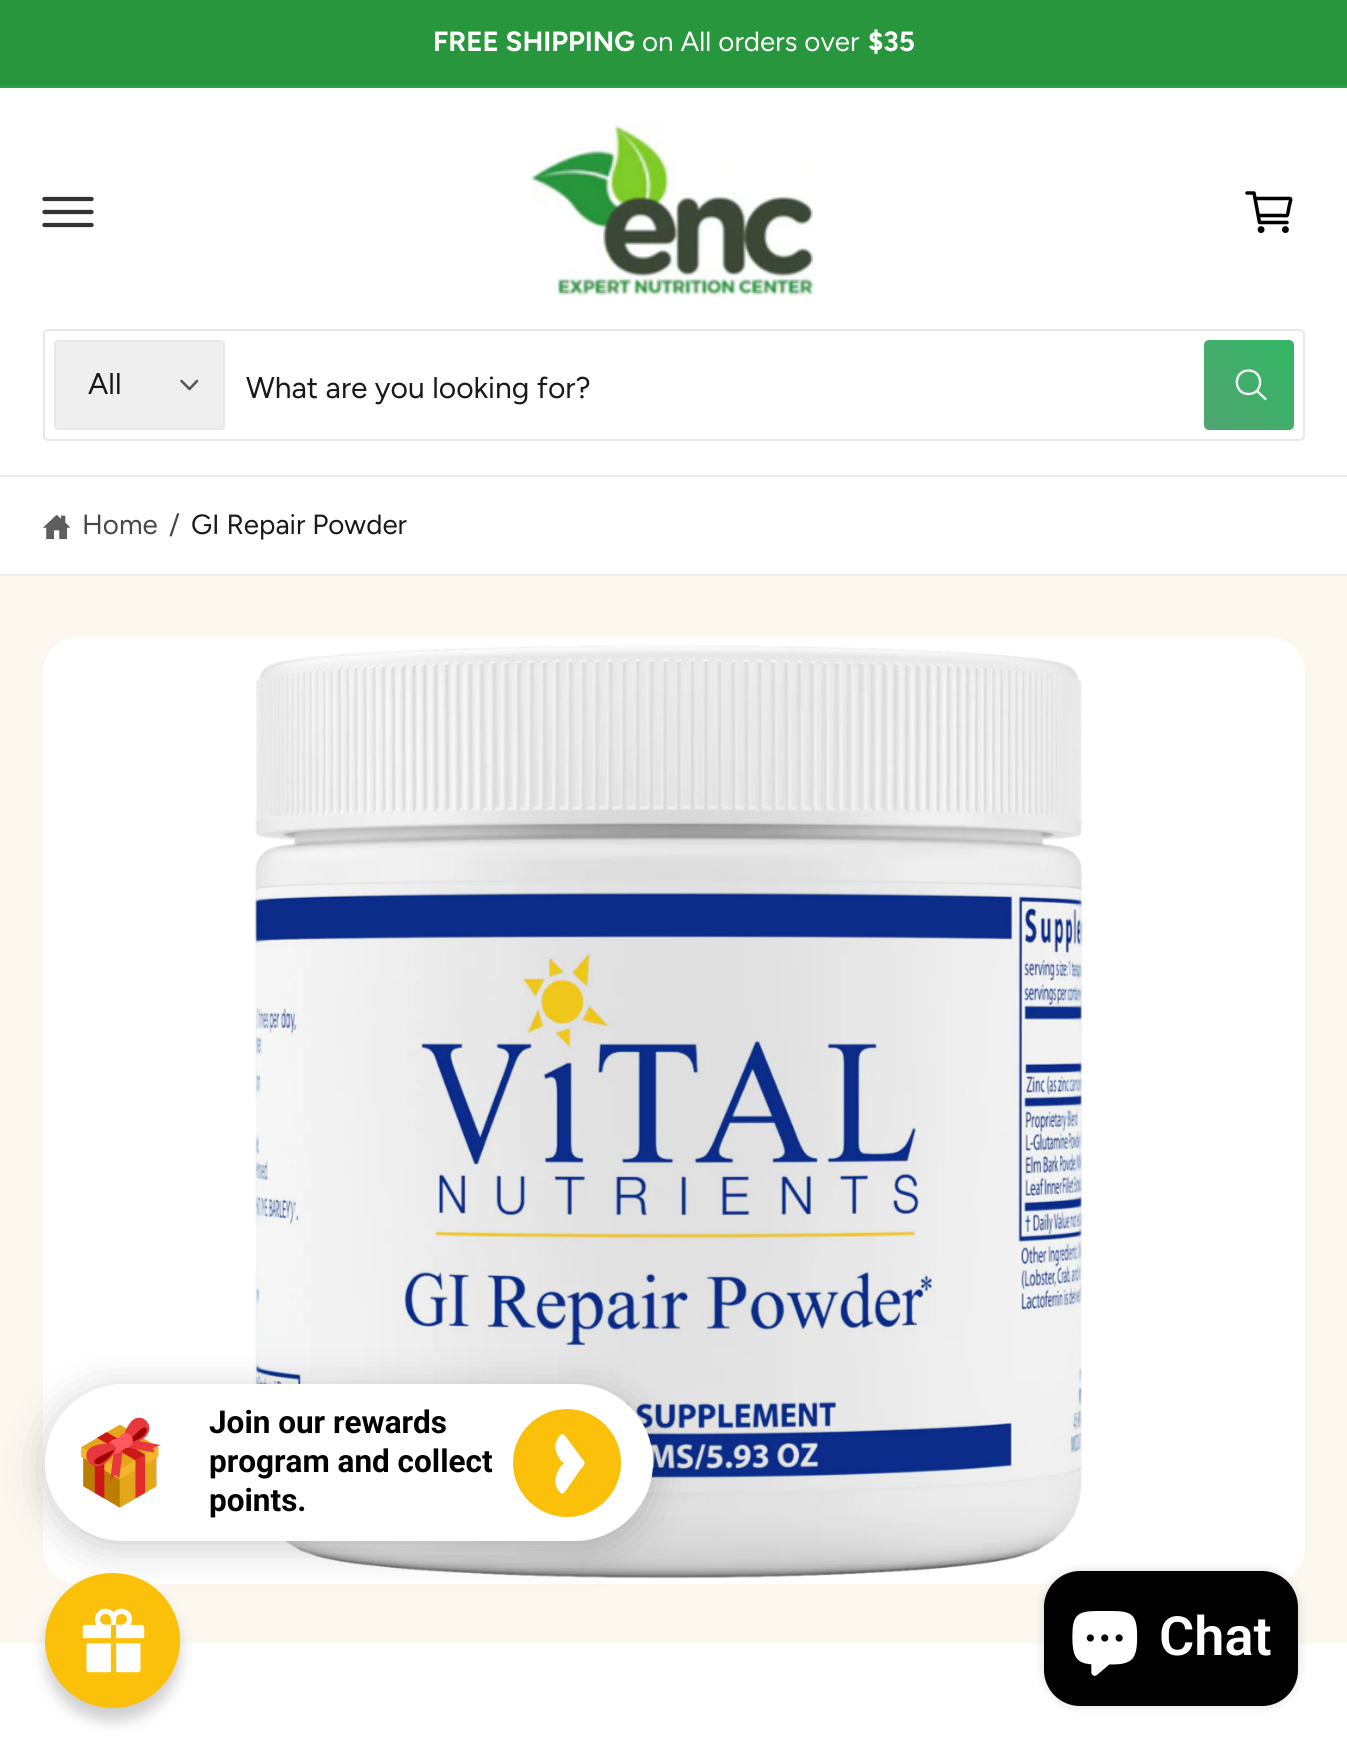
import math
import cairo


def round_path(ctx, x, y, w, h, r):
	ctx.new_sub_path()
	for i, (u, v) in enumerate([(x + w - r, y + h - r), (x + r, y + h - r), (x + r, y + r), (x + w - r, y + r)]):
		ctx.arc(u, v, r, i * math.pi / 2, (i + 1) * math.pi / 2)
	ctx.close_path()

def blur_box(ctx, x, y, w, h, r, blur, alpha):
	ctx.push_group_with_content(cairo.CONTENT_ALPHA)
	ctx.set_operator(cairo.OPERATOR_SOURCE)
	for i in range(15, -16, -2):
		e = blur * i / 6
		if min(w, h) + 2 * e > 0:
			ctx.set_source_rgba(0, 0, 0, alpha * math.erfc((i - 1) / 8.5) / 2)
			round_path(ctx, x - e, y - e, w + 2 * e, h + 2 * e, max(0, min(r + e + blur * .6, min(w, h) / 2 + e)))
			ctx.fill()
	ctx.mask(ctx.pop_group())

def paste(ctx, path, x, y, w, h):
	ctx.save()
	ctx.set_source_surface(cairo.ImageSurface.create_from_png(path), x, y)
	ctx.rectangle(x, y, w, h)
	ctx.fill()
	ctx.restore()

def draw(ctx):
	ctx.set_source_rgb(0.988, 0.965, 0.937)
	ctx.paint()
	ctx.set_source_rgb(0.153, 0.588, 0.235)
	ctx.rectangle(0, 0, 1347, 86)
	ctx.fill()
	ctx.set_source_rgb(0.22, 0.62, 0.298)
	ctx.rectangle(0, 86, 1347, 2)
	ctx.fill()
	ctx.select_font_face('Figtree', cairo.FONT_SLANT_NORMAL, cairo.FONT_WEIGHT_BOLD)
	ctx.set_font_size(27.75)
	ctx.set_source_rgb(1, 1, 1)
	ctx.move_to(433, 51)
	ctx.show_text('FREE SHIPPING')
	ctx.select_font_face('Figtree')
	ctx.move_to(642, 51)
	ctx.show_text('on All orders over')
	ctx.select_font_face('Figtree', cairo.FONT_SLANT_NORMAL, cairo.FONT_WEIGHT_BOLD)
	ctx.move_to(868, 51)
	ctx.show_text('$35')
	ctx.rectangle(0, 88, 1347, 387)
	ctx.fill()
	ctx.set_source_rgb(0.922, 0.922, 0.922)
	ctx.rectangle(0, 475, 1347, 2)
	ctx.fill()
	ctx.new_path()
	ctx.move_to(44.5, 199)
	ctx.line_to(91.5, 199)
	ctx.move_to(44.5, 212)
	ctx.line_to(91.5, 212)
	ctx.move_to(44.5, 225)
	ctx.line_to(91.5, 225)
	ctx.set_source_rgb(0.2, 0.2, 0.2)
	ctx.set_line_width(4.3)
	ctx.set_line_cap(cairo.LINE_CAP_ROUND)
	ctx.stroke()
	paste(ctx, 'media/1.png', 529, 121, 286, 177)
	ctx.arc(1261.1, 229.6, 1.7, 0, 2 * math.pi)
	ctx.set_source_rgb(0, 0, 0)
	ctx.set_line_width(3.5)
	ctx.set_line_cap(cairo.LINE_CAP_BUTT)
	ctx.stroke()
	ctx.arc(1285.4, 229.6, 1.7, 0, 2 * math.pi)
	ctx.stroke()
	ctx.new_path()
	ctx.move_to(1247, 193)
	ctx.line_to(1254, 193)
	ctx.line_to(1259.5, 222.5)
	ctx.line_to(1287, 222.5)
	ctx.move_to(1259.5, 215.5)
	ctx.line_to(1282, 215.5)
	ctx.curve_to(1287.5, 215.5, 1287, 217, 1288, 212.5)
	ctx.line_to(1289, 207)
	ctx.curve_to(1291, 197, 1293, 198.5, 1284, 198.5)
	ctx.line_to(1256, 198.5)
	ctx.set_line_cap(cairo.LINE_CAP_ROUND)
	ctx.set_line_join(cairo.LINE_JOIN_ROUND)
	ctx.stroke()
	ctx.set_source_rgb(0.937, 0.937, 0.937)
	round_path(ctx, 54, 340, 171, 90, 5)
	ctx.fill()
	ctx.rectangle(55, 341, 169, 88)
	ctx.set_source_rgba(0.098, 0.098, 0.098, 0.03)
	ctx.set_line_width(2)
	ctx.set_line_cap(cairo.LINE_CAP_BUTT)
	ctx.set_line_join(cairo.LINE_JOIN_MITER)
	ctx.stroke()
	ctx.new_path()
	ctx.move_to(181.5, 381)
	ctx.line_to(189.5, 389)
	ctx.line_to(197, 381)
	ctx.set_source_rgb(0.349, 0.349, 0.349)
	ctx.set_line_width(2.6)
	ctx.set_line_cap(cairo.LINE_CAP_ROUND)
	ctx.set_line_join(cairo.LINE_JOIN_ROUND)
	ctx.stroke()
	gradient = cairo.LinearGradient(1200, 426, 1297, 344)
	gradient.add_color_stop_rgba(0.13, 0.302, 0.655, 0.435, 1)
	gradient.add_color_stop_rgba(0.84, 0.22, 0.706, 0.404, 1)
	ctx.set_source(gradient)
	round_path(ctx, 1204, 340, 90, 90, 5)
	ctx.fill()
	ctx.new_path()
	ctx.move_to(1248.5, 370.5)
	ctx.curve_to(1233, 370.5, 1233, 394, 1248.5, 394)
	ctx.curve_to(1264, 394, 1264, 370.5, 1248.5, 370.5)
	ctx.close_path()
	ctx.set_source_rgb(0.953, 0.953, 0.953)
	ctx.set_line_width(2.4)
	ctx.set_line_cap(cairo.LINE_CAP_BUTT)
	ctx.set_line_join(cairo.LINE_JOIN_MITER)
	ctx.stroke()
	ctx.new_path()
	ctx.move_to(1257, 391)
	ctx.line_to(1265.5, 399)
	ctx.set_line_cap(cairo.LINE_CAP_ROUND)
	ctx.stroke()
	round_path(ctx, 44, 330, 1260, 110, 4)
	ctx.set_source_rgb(0.91, 0.91, 0.91)
	ctx.set_line_width(2)
	ctx.set_line_cap(cairo.LINE_CAP_BUTT)
	ctx.stroke()
	ctx.select_font_face('Figtree')
	ctx.set_font_size(30)
	ctx.set_source_rgb(0.098, 0.098, 0.098)
	ctx.move_to(88, 394)
	ctx.show_text('All')
	ctx.move_to(246, 398)
	ctx.show_text('What are you looking for?')
	ctx.set_source_rgb(1, 1, 1)
	ctx.rectangle(0, 477, 1347, 97)
	ctx.fill()
	ctx.set_source_rgb(0.929, 0.929, 0.929)
	ctx.rectangle(0, 574, 1347, 2)
	ctx.fill()
	paste(ctx, 'media/2.png', 43, 514, 27, 26)
	ctx.set_font_size(27.75)
	ctx.set_source_rgb(0.278, 0.278, 0.278)
	ctx.move_to(82, 534)
	ctx.show_text('Home')
	ctx.move_to(169, 534)
	ctx.show_text('/')
	ctx.set_source_rgb(0.098, 0.098, 0.098)
	ctx.move_to(191, 534)
	ctx.show_text('GI Repair Powder')
	ctx.set_source_rgb(1, 1, 1)
	round_path(ctx, 43, 637, 1262, 947, 36)
	ctx.fill()
	paste(ctx, 'media/3.png', 254, 645, 829, 934)
	ctx.rectangle(0, 1643, 1347, 109)
	ctx.fill()
	ctx.set_source_rgb(0, 0, 0)
	blur_box(ctx, 45, 1391, 608, 157, 78.5, 20, 0.2)
	ctx.set_source_rgb(1, 1, 1)
	round_path(ctx, 45, 1384, 608, 157, 78.5)
	ctx.fill()
	paste(ctx, 'media/4.png', 81, 1418, 80, 90)
	ctx.select_font_face('Roboto', cairo.FONT_SLANT_NORMAL, cairo.FONT_WEIGHT_BOLD)
	ctx.set_font_size(31.5)
	ctx.set_source_rgb(0, 0, 0)
	for x, y, s in [
		(209, 1433, 'Join our rewards'),
		(209, 1472, 'program and collect'),
		(209, 1511, 'points.'),
	]:
		ctx.move_to(x, y)
		ctx.show_text(s)
	ctx.set_source_rgb(0.984, 0.753, 0.039)
	ctx.new_path()
	ctx.arc(567, 1463, 54, 0, 2 * math.pi)
	ctx.fill()
	ctx.set_source_rgb(1, 1, 1)
	ctx.new_path()
	ctx.move_to(584, 1461)
	ctx.curve_to(586, 1464, 582, 1468, 580, 1470)
	ctx.line_to(567, 1489)
	ctx.curve_to(563, 1494, 563, 1496, 558, 1490)
	ctx.curve_to(553, 1482, 556, 1473, 561, 1466)
	ctx.line_to(564, 1463)
	ctx.line_to(561, 1461)
	ctx.curve_to(557, 1455, 553, 1447, 557, 1440)
	ctx.curve_to(558, 1438, 560, 1434, 563, 1434)
	ctx.curve_to(564, 1433, 581, 1458, 584, 1461)
	ctx.close_path()
	ctx.fill()
	ctx.set_source_rgb(0, 0, 0)
	blur_box(ctx, 45, 1586, 135, 135, 67.5, 7, 0.19)
	ctx.set_source_rgb(0.984, 0.753, 0.039)
	ctx.arc(112.5, 1640.5, 67.5, 0, 2 * math.pi)
	ctx.fill()
	paste(ctx, 'media/5.png', 82, 1608, 63, 65)
	ctx.set_source_rgb(0, 0, 0)
	blur_box(ctx, 1044, 1571, 254, 135, 36, 5.5, 0.15)
	ctx.set_source_rgb(0, 0, 0)
	round_path(ctx, 1044, 1571, 254, 135, 36)
	ctx.fill()
	paste(ctx, 'media/6.png', 1072, 1611, 66, 65)
	ctx.select_font_face('Roboto SemiBold')
	ctx.set_font_size(54)
	ctx.set_source_rgb(1, 1, 1)
	ctx.move_to(1159, 1655)
	ctx.show_text('Chat')


surface = cairo.ImageSurface(cairo.FORMAT_RGB24, 1347, 1752)
ctx = cairo.Context(surface)
options = cairo.FontOptions()
options.set_hint_metrics(cairo.HINT_METRICS_OFF)
options.set_hint_style(cairo.HINT_STYLE_NONE)
ctx.set_font_options(options)
ctx.set_miter_limit(4)
draw(ctx)
surface.write_to_png('image.png')
